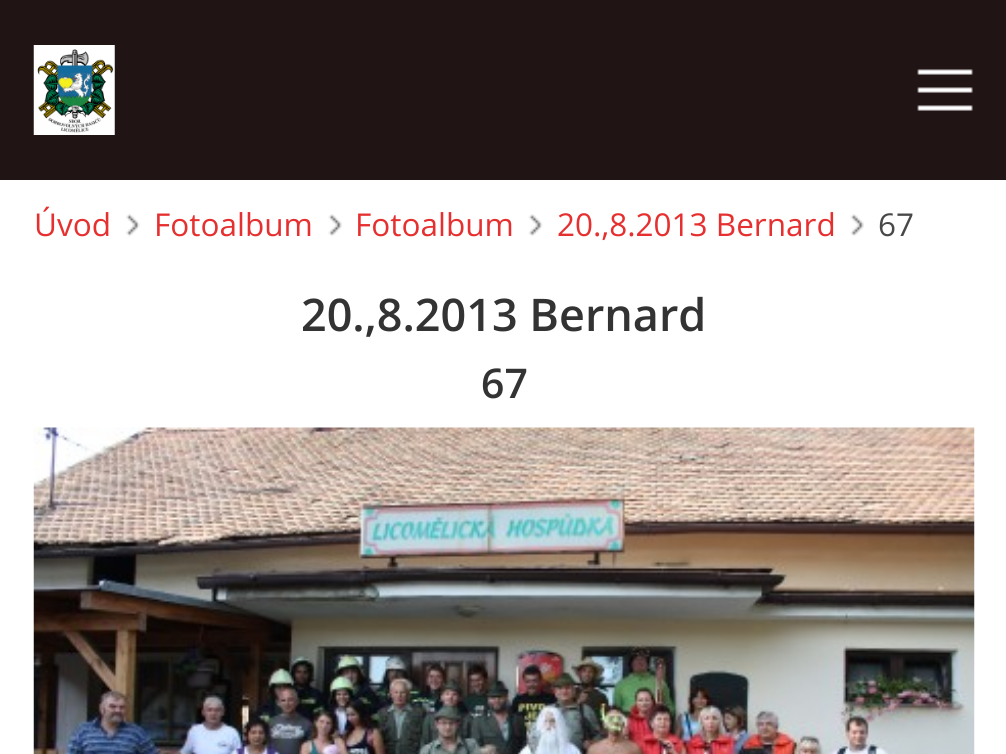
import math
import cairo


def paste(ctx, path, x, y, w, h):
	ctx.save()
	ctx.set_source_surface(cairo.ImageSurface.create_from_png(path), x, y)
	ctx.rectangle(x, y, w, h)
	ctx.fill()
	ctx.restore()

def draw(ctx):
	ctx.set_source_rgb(1, 1, 1)
	ctx.paint()
	ctx.set_source_rgb(0.129, 0.082, 0.082)
	ctx.rectangle(0, 0, 1006, 180)
	ctx.fill()
	paste(ctx, 'media/1.png', 33, 45, 82, 90)
	paste(ctx, 'media/2.png', 917, 69, 56, 42)
	paste(ctx, 'media/3.png', 126, 213, 14, 24)
	ctx.select_font_face('Open Sans')
	ctx.set_font_size(31.5)
	ctx.set_source_rgb(0.902, 0.184, 0.184)
	ctx.move_to(34, 236)
	ctx.show_text('Úvod')
	paste(ctx, 'media/4.png', 328, 214, 14, 22)
	ctx.move_to(154, 236)
	ctx.show_text('Fotoalbum')
	paste(ctx, 'media/5.png', 528, 214, 15, 22)
	ctx.move_to(355, 236)
	ctx.show_text('Fotoalbum')
	paste(ctx, 'media/4.png', 850, 214, 14, 22)
	ctx.move_to(557, 236)
	ctx.show_text('20.,8.2013 Bernard')
	ctx.set_source_rgb(0.282, 0.282, 0.282)
	ctx.move_to(878, 236)
	ctx.show_text('67')
	ctx.select_font_face('Open Sans SemiBold')
	ctx.set_font_size(45)
	ctx.set_source_rgb(0.2, 0.2, 0.2)
	ctx.move_to(301, 331)
	ctx.show_text('20.,8.2013 Bernard')
	ctx.set_font_size(41)
	ctx.move_to(481, 398)
	ctx.show_text('67')
	paste(ctx, 'media/6.png', 33, 427, 942, 327)


surface = cairo.ImageSurface(cairo.FORMAT_RGB24, 1006, 754)
ctx = cairo.Context(surface)
options = cairo.FontOptions()
options.set_hint_metrics(cairo.HINT_METRICS_OFF)
options.set_hint_style(cairo.HINT_STYLE_NONE)
ctx.set_font_options(options)
ctx.set_miter_limit(4)
draw(ctx)
surface.write_to_png('image.png')
